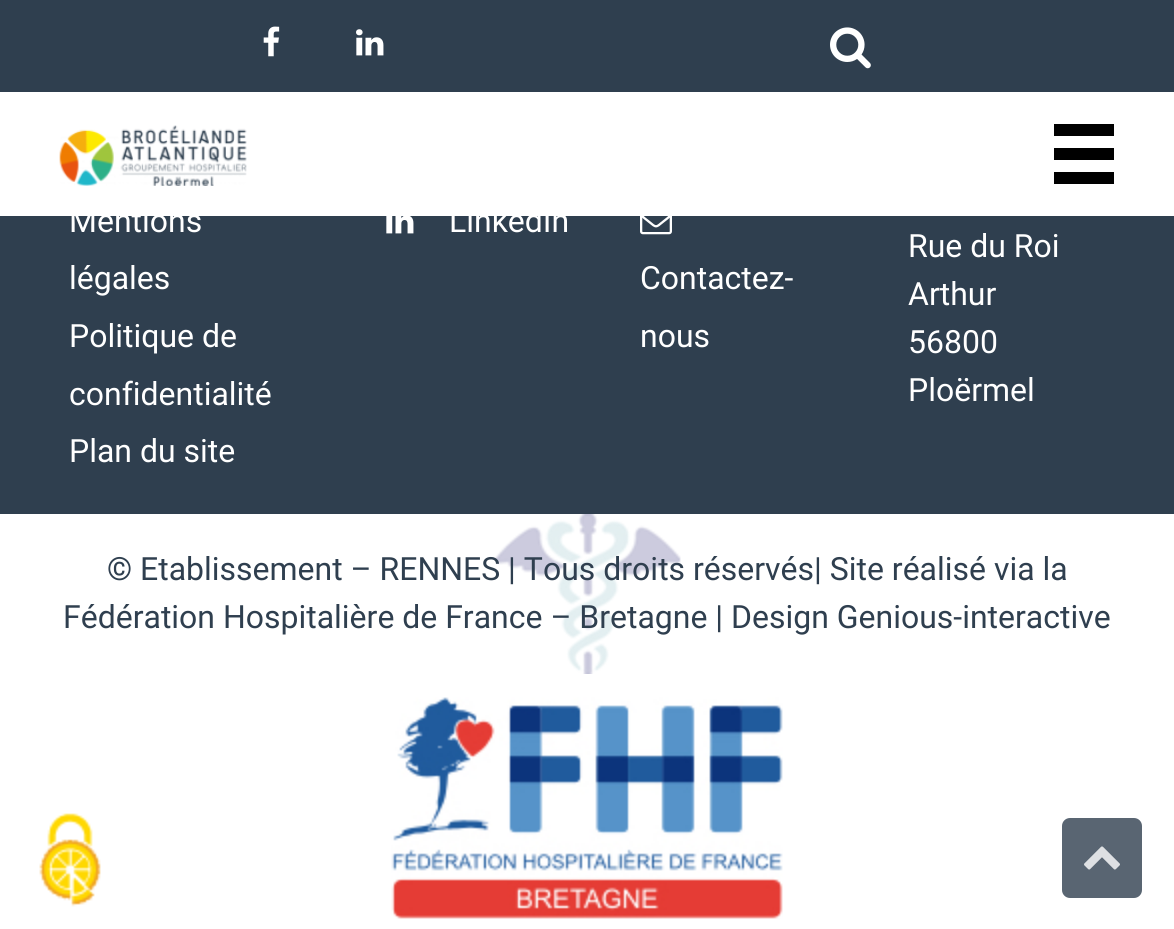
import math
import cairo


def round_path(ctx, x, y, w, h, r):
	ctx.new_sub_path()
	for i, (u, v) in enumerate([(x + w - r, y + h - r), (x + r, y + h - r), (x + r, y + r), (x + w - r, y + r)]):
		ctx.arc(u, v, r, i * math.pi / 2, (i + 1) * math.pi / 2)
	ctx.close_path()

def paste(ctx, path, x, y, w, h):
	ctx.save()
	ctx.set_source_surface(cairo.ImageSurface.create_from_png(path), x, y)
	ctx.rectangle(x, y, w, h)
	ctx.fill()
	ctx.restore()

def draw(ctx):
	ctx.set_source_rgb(1, 1, 1)
	ctx.paint()
	ctx.set_source_rgb(0.184, 0.247, 0.31)
	ctx.rectangle(0, 0, 1174, 92)
	ctx.fill()
	paste(ctx, 'media/1.png', 263, 26, 17, 31)
	paste(ctx, 'media/2.png', 356, 29, 28, 27)
	paste(ctx, 'media/3.png', 830, 27, 41, 42)
	paste(ctx, 'media/4.png', 59, 125, 188, 61)
	ctx.set_source_rgb(0, 0, 0)
	ctx.rectangle(1054, 124, 60, 12)
	ctx.rectangle(1054, 148, 60, 12)
	ctx.rectangle(1054, 172, 60, 12)
	ctx.fill()
	ctx.set_source_rgb(0.184, 0.247, 0.31)
	ctx.rectangle(0, 216, 1174, 298)
	ctx.fill()
	ctx.select_font_face('Roboto')
	ctx.set_font_size(32)
	ctx.set_source_rgb(1, 1, 1)
	for x, y, s in [
		(69, 232, 'Mentions'),
		(69, 289, 'légales'),
		(69, 347, 'Politique de'),
		(69, 405, 'confidentialité'),
		(69, 462, 'Plan du site'),
	]:
		ctx.move_to(x, y)
		ctx.show_text(s)
	paste(ctx, 'media/5.png', 386, 216, 28, 18)
	ctx.move_to(449, 232)
	ctx.show_text('LinkedIn')
	paste(ctx, 'media/6.png', 640, 216, 32, 19)
	for x, y, s in [
		(640, 289, 'Contactez-'),
		(640, 347, 'nous'),
		(908, 257, 'Rue du Roi'),
		(908, 305, 'Arthur'),
		(908, 353, '56800'),
		(908, 401, 'Ploërmel'),
	]:
		ctx.move_to(x, y)
		ctx.show_text(s)
	paste(ctx, 'media/7.png', 495, 514, 186, 160)
	ctx.set_source_rgb(0.184, 0.247, 0.31)
	ctx.move_to(107, 580)
	ctx.show_text('© Etablissement – RENNES | Tous droits réservés| Site réalisé via la')
	ctx.move_to(63, 628)
	ctx.show_text('Fédération Hospitalière de France – Bretagne | Design Genious-interactive')
	paste(ctx, 'media/8.png', 391, 697, 392, 222)
	ctx.set_source_rgb(0.349, 0.396, 0.447)
	round_path(ctx, 1062, 818, 80, 80, 8)
	ctx.fill()
	paste(ctx, 'media/9.png', 1084, 846, 36, 24)
	paste(ctx, 'media/10.png', 39, 813, 62, 94)


surface = cairo.ImageSurface(cairo.FORMAT_RGB24, 1174, 929)
ctx = cairo.Context(surface)
options = cairo.FontOptions()
options.set_hint_metrics(cairo.HINT_METRICS_OFF)
options.set_hint_style(cairo.HINT_STYLE_NONE)
ctx.set_font_options(options)
ctx.set_miter_limit(4)
draw(ctx)
surface.write_to_png('image.png')
